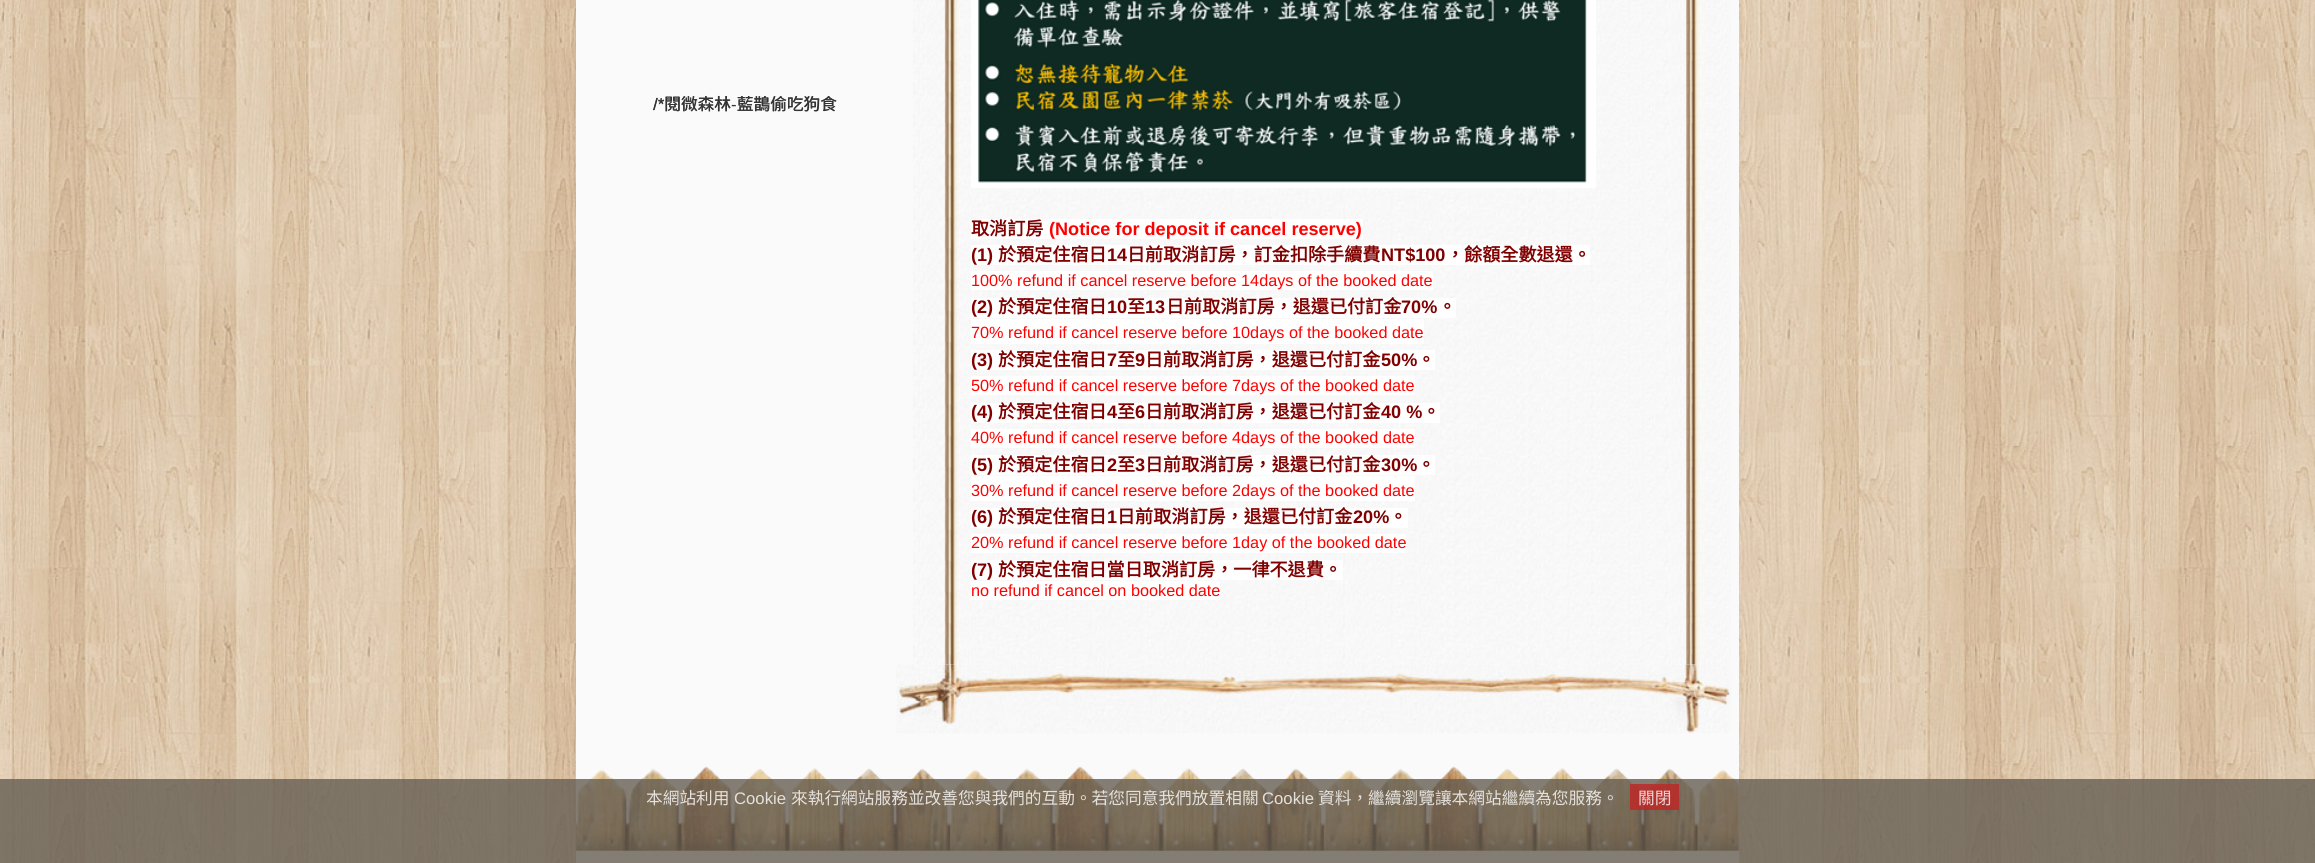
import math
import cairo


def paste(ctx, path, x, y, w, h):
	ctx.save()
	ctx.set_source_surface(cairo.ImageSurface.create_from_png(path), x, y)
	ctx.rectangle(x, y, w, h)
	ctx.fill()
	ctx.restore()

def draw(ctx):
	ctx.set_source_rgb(1, 1, 1)
	ctx.paint()
	paste(ctx, 'media/1.png', 0, 0, 2315, 863)
	ctx.set_source_rgb(0.98, 0.98, 0.98)
	ctx.rectangle(576, 0, 1163, 863)
	ctx.fill()
	paste(ctx, 'media/2.png', 653, 96, 183, 16)
	ctx.select_font_face('Noto Sans CJK TC')
	ctx.set_font_size(16.7)
	ctx.set_source_rgb(0.2, 0.2, 0.2)
	ctx.move_to(737, 110)
	ctx.show_text('藍鵲偷吃狗食')
	ctx.select_font_face('Liberation Sans')
	ctx.move_to(653, 110)
	ctx.show_text('/*')
	ctx.select_font_face('Noto Sans CJK TC')
	ctx.move_to(664, 110)
	ctx.show_text('閱微森林')
	paste(ctx, 'media/3.png', 913, 0, 818, 665)
	ctx.set_source_rgb(1, 1, 1)
	ctx.rectangle(971, 0, 625, 188)
	ctx.fill()
	paste(ctx, 'media/4.png', 978, 0, 609, 183)
	ctx.rectangle(971, 219, 392, 20)
	ctx.fill()
	ctx.select_font_face('Noto Sans CJK TC', cairo.FONT_SLANT_NORMAL, cairo.FONT_WEIGHT_BOLD)
	ctx.set_font_size(18.1)
	ctx.set_source_rgb(0.502, 0, 0)
	ctx.move_to(971, 235)
	ctx.show_text('取消訂房')
	ctx.select_font_face('Liberation Sans', cairo.FONT_SLANT_NORMAL, cairo.FONT_WEIGHT_BOLD)
	ctx.set_source_rgb(1, 0, 0)
	ctx.move_to(1049, 235)
	ctx.show_text('(Notice for deposit if cancel reserve)')
	ctx.set_source_rgb(1, 1, 1)
	ctx.rectangle(971, 245, 619, 20)
	ctx.fill()
	ctx.set_source_rgb(0.502, 0, 0)
	ctx.move_to(971, 261)
	ctx.show_text('(1)')
	ctx.select_font_face('Noto Sans CJK TC', cairo.FONT_SLANT_NORMAL, cairo.FONT_WEIGHT_BOLD)
	ctx.move_to(998, 261)
	ctx.show_text('於預定住宿日')
	ctx.select_font_face('Liberation Sans', cairo.FONT_SLANT_NORMAL, cairo.FONT_WEIGHT_BOLD)
	ctx.move_to(1107, 261)
	ctx.show_text('14')
	ctx.select_font_face('Noto Sans CJK TC', cairo.FONT_SLANT_NORMAL, cairo.FONT_WEIGHT_BOLD)
	ctx.move_to(1127, 261)
	ctx.show_text('日前取消訂房，訂金扣除手續費')
	ctx.select_font_face('Liberation Sans', cairo.FONT_SLANT_NORMAL, cairo.FONT_WEIGHT_BOLD)
	ctx.move_to(1381, 261)
	ctx.show_text('NT$100')
	ctx.select_font_face('Noto Sans CJK TC', cairo.FONT_SLANT_NORMAL, cairo.FONT_WEIGHT_BOLD)
	ctx.move_to(1446, 261)
	ctx.show_text('，餘額全數退還。')
	ctx.set_source_rgb(1, 1, 1)
	ctx.rectangle(971, 271, 462, 19)
	ctx.fill()
	ctx.select_font_face('Liberation Sans')
	ctx.set_font_size(16.25)
	ctx.set_source_rgb(1, 0, 0)
	ctx.move_to(971, 286)
	ctx.show_text('100% refund if cancel reserve before 14days of the booked date')
	ctx.set_source_rgb(1, 1, 1)
	ctx.rectangle(971, 298, 485, 20)
	ctx.fill()
	ctx.select_font_face('Liberation Sans', cairo.FONT_SLANT_NORMAL, cairo.FONT_WEIGHT_BOLD)
	ctx.set_font_size(18.1)
	ctx.set_source_rgb(0.502, 0, 0)
	ctx.move_to(971, 313)
	ctx.show_text('(2)')
	ctx.select_font_face('Noto Sans CJK TC', cairo.FONT_SLANT_NORMAL, cairo.FONT_WEIGHT_BOLD)
	ctx.move_to(998, 313)
	ctx.show_text('於預定住宿日')
	ctx.select_font_face('Liberation Sans', cairo.FONT_SLANT_NORMAL, cairo.FONT_WEIGHT_BOLD)
	ctx.move_to(1107, 313)
	ctx.show_text('10')
	ctx.select_font_face('Noto Sans CJK TC', cairo.FONT_SLANT_NORMAL, cairo.FONT_WEIGHT_BOLD)
	ctx.move_to(1127, 313)
	ctx.show_text('至')
	ctx.select_font_face('Liberation Sans', cairo.FONT_SLANT_NORMAL, cairo.FONT_WEIGHT_BOLD)
	ctx.move_to(1145, 313)
	ctx.show_text('13')
	ctx.select_font_face('Noto Sans CJK TC', cairo.FONT_SLANT_NORMAL, cairo.FONT_WEIGHT_BOLD)
	ctx.move_to(1166, 313)
	ctx.show_text('日前取消訂房，退還已付訂金')
	ctx.select_font_face('Liberation Sans', cairo.FONT_SLANT_NORMAL, cairo.FONT_WEIGHT_BOLD)
	ctx.move_to(1401, 313)
	ctx.show_text('70%')
	ctx.select_font_face('Noto Sans CJK TC', cairo.FONT_SLANT_NORMAL, cairo.FONT_WEIGHT_BOLD)
	ctx.move_to(1438, 313)
	ctx.show_text('。')
	ctx.set_source_rgb(1, 1, 1)
	ctx.rectangle(971, 319, 453, 25)
	ctx.fill()
	ctx.select_font_face('Liberation Sans')
	ctx.set_font_size(16.25)
	ctx.set_source_rgb(1, 0, 0)
	ctx.move_to(971, 338)
	ctx.show_text('70% refund if cancel reserve before 10days of the booked date')
	ctx.set_source_rgb(1, 1, 1)
	ctx.rectangle(971, 350, 464, 20)
	ctx.fill()
	ctx.select_font_face('Liberation Sans', cairo.FONT_SLANT_NORMAL, cairo.FONT_WEIGHT_BOLD)
	ctx.set_font_size(18.1)
	ctx.set_source_rgb(0.502, 0, 0)
	ctx.move_to(971, 366)
	ctx.show_text('(3)')
	ctx.select_font_face('Noto Sans CJK TC', cairo.FONT_SLANT_NORMAL, cairo.FONT_WEIGHT_BOLD)
	ctx.move_to(998, 366)
	ctx.show_text('於預定住宿日')
	ctx.select_font_face('Liberation Sans', cairo.FONT_SLANT_NORMAL, cairo.FONT_WEIGHT_BOLD)
	ctx.move_to(1107, 366)
	ctx.show_text('7')
	ctx.select_font_face('Noto Sans CJK TC', cairo.FONT_SLANT_NORMAL, cairo.FONT_WEIGHT_BOLD)
	ctx.move_to(1117, 366)
	ctx.show_text('至')
	ctx.select_font_face('Liberation Sans', cairo.FONT_SLANT_NORMAL, cairo.FONT_WEIGHT_BOLD)
	ctx.move_to(1135, 366)
	ctx.show_text('9')
	ctx.select_font_face('Noto Sans CJK TC', cairo.FONT_SLANT_NORMAL, cairo.FONT_WEIGHT_BOLD)
	ctx.move_to(1145, 366)
	ctx.show_text('日前取消訂房，退還已付訂金')
	ctx.select_font_face('Liberation Sans', cairo.FONT_SLANT_NORMAL, cairo.FONT_WEIGHT_BOLD)
	ctx.move_to(1381, 366)
	ctx.show_text('50%')
	ctx.select_font_face('Noto Sans CJK TC', cairo.FONT_SLANT_NORMAL, cairo.FONT_WEIGHT_BOLD)
	ctx.move_to(1417, 366)
	ctx.show_text('。')
	ctx.set_source_rgb(1, 1, 1)
	ctx.rectangle(971, 376, 444, 19)
	ctx.fill()
	ctx.select_font_face('Liberation Sans')
	ctx.set_font_size(16.25)
	ctx.set_source_rgb(1, 0, 0)
	ctx.move_to(971, 391)
	ctx.show_text('50% refund if cancel reserve before 7days of the booked date')
	ctx.set_source_rgb(1, 1, 1)
	ctx.rectangle(971, 403, 469, 20)
	ctx.fill()
	ctx.select_font_face('Liberation Sans', cairo.FONT_SLANT_NORMAL, cairo.FONT_WEIGHT_BOLD)
	ctx.set_font_size(18.1)
	ctx.set_source_rgb(0.502, 0, 0)
	ctx.move_to(971, 418)
	ctx.show_text('(4)')
	ctx.select_font_face('Noto Sans CJK TC', cairo.FONT_SLANT_NORMAL, cairo.FONT_WEIGHT_BOLD)
	ctx.move_to(998, 418)
	ctx.show_text('於預定住宿日')
	ctx.select_font_face('Liberation Sans', cairo.FONT_SLANT_NORMAL, cairo.FONT_WEIGHT_BOLD)
	ctx.move_to(1107, 418)
	ctx.show_text('4')
	ctx.select_font_face('Noto Sans CJK TC', cairo.FONT_SLANT_NORMAL, cairo.FONT_WEIGHT_BOLD)
	ctx.move_to(1117, 418)
	ctx.show_text('至')
	ctx.select_font_face('Liberation Sans', cairo.FONT_SLANT_NORMAL, cairo.FONT_WEIGHT_BOLD)
	ctx.move_to(1135, 418)
	ctx.show_text('6')
	ctx.select_font_face('Noto Sans CJK TC', cairo.FONT_SLANT_NORMAL, cairo.FONT_WEIGHT_BOLD)
	ctx.move_to(1145, 418)
	ctx.show_text('日前取消訂房，退還已付訂金')
	ctx.select_font_face('Liberation Sans', cairo.FONT_SLANT_NORMAL, cairo.FONT_WEIGHT_BOLD)
	ctx.move_to(1381, 418)
	ctx.show_text('40 %')
	ctx.select_font_face('Noto Sans CJK TC', cairo.FONT_SLANT_NORMAL, cairo.FONT_WEIGHT_BOLD)
	ctx.move_to(1422, 418)
	ctx.show_text('。')
	ctx.set_source_rgb(1, 1, 1)
	ctx.rectangle(971, 429, 444, 19)
	ctx.fill()
	ctx.select_font_face('Liberation Sans')
	ctx.set_font_size(16.25)
	ctx.set_source_rgb(1, 0, 0)
	ctx.move_to(971, 443)
	ctx.show_text('40% refund if cancel reserve before 4days of the booked date')
	ctx.set_source_rgb(1, 1, 1)
	ctx.rectangle(971, 455, 464, 20)
	ctx.fill()
	ctx.select_font_face('Liberation Sans', cairo.FONT_SLANT_NORMAL, cairo.FONT_WEIGHT_BOLD)
	ctx.set_font_size(18.1)
	ctx.set_source_rgb(0.502, 0, 0)
	ctx.move_to(971, 471)
	ctx.show_text('(5)')
	ctx.select_font_face('Noto Sans CJK TC', cairo.FONT_SLANT_NORMAL, cairo.FONT_WEIGHT_BOLD)
	ctx.move_to(998, 471)
	ctx.show_text('於預定住宿日')
	ctx.select_font_face('Liberation Sans', cairo.FONT_SLANT_NORMAL, cairo.FONT_WEIGHT_BOLD)
	ctx.move_to(1107, 471)
	ctx.show_text('2')
	ctx.select_font_face('Noto Sans CJK TC', cairo.FONT_SLANT_NORMAL, cairo.FONT_WEIGHT_BOLD)
	ctx.move_to(1117, 471)
	ctx.show_text('至')
	ctx.select_font_face('Liberation Sans', cairo.FONT_SLANT_NORMAL, cairo.FONT_WEIGHT_BOLD)
	ctx.move_to(1135, 471)
	ctx.show_text('3')
	ctx.select_font_face('Noto Sans CJK TC', cairo.FONT_SLANT_NORMAL, cairo.FONT_WEIGHT_BOLD)
	ctx.move_to(1145, 471)
	ctx.show_text('日前取消訂房，退還已付訂金')
	ctx.select_font_face('Liberation Sans', cairo.FONT_SLANT_NORMAL, cairo.FONT_WEIGHT_BOLD)
	ctx.move_to(1381, 471)
	ctx.show_text('30%')
	ctx.select_font_face('Noto Sans CJK TC', cairo.FONT_SLANT_NORMAL, cairo.FONT_WEIGHT_BOLD)
	ctx.move_to(1417, 471)
	ctx.show_text('。')
	ctx.set_source_rgb(1, 1, 1)
	ctx.rectangle(971, 476, 444, 25)
	ctx.fill()
	ctx.select_font_face('Liberation Sans')
	ctx.set_font_size(16.25)
	ctx.set_source_rgb(1, 0, 0)
	ctx.move_to(971, 496)
	ctx.show_text('30% refund if cancel reserve before 2days of the booked date')
	ctx.set_source_rgb(1, 1, 1)
	ctx.rectangle(971, 508, 437, 20)
	ctx.fill()
	ctx.select_font_face('Liberation Sans', cairo.FONT_SLANT_NORMAL, cairo.FONT_WEIGHT_BOLD)
	ctx.set_font_size(18.1)
	ctx.set_source_rgb(0.502, 0, 0)
	ctx.move_to(971, 523)
	ctx.show_text('(6)')
	ctx.select_font_face('Noto Sans CJK TC', cairo.FONT_SLANT_NORMAL, cairo.FONT_WEIGHT_BOLD)
	ctx.move_to(998, 523)
	ctx.show_text('於預定住宿日')
	ctx.select_font_face('Liberation Sans', cairo.FONT_SLANT_NORMAL, cairo.FONT_WEIGHT_BOLD)
	ctx.move_to(1107, 523)
	ctx.show_text('1')
	ctx.select_font_face('Noto Sans CJK TC', cairo.FONT_SLANT_NORMAL, cairo.FONT_WEIGHT_BOLD)
	ctx.move_to(1117, 523)
	ctx.show_text('日前取消訂房，退還已付訂金')
	ctx.select_font_face('Liberation Sans', cairo.FONT_SLANT_NORMAL, cairo.FONT_WEIGHT_BOLD)
	ctx.move_to(1353, 523)
	ctx.show_text('20%')
	ctx.select_font_face('Noto Sans CJK TC', cairo.FONT_SLANT_NORMAL, cairo.FONT_WEIGHT_BOLD)
	ctx.move_to(1389, 523)
	ctx.show_text('。')
	ctx.set_source_rgb(1, 1, 1)
	ctx.rectangle(971, 534, 435, 19)
	ctx.fill()
	ctx.select_font_face('Liberation Sans')
	ctx.set_font_size(16.25)
	ctx.set_source_rgb(1, 0, 0)
	ctx.move_to(971, 548)
	ctx.show_text('20% refund if cancel reserve before 1day of the booked date')
	ctx.set_source_rgb(1, 1, 1)
	ctx.rectangle(971, 560, 372, 20)
	ctx.fill()
	ctx.select_font_face('Liberation Sans', cairo.FONT_SLANT_NORMAL, cairo.FONT_WEIGHT_BOLD)
	ctx.set_font_size(18.1)
	ctx.set_source_rgb(0.502, 0, 0)
	ctx.move_to(971, 576)
	ctx.show_text('(7)')
	ctx.select_font_face('Noto Sans CJK TC', cairo.FONT_SLANT_NORMAL, cairo.FONT_WEIGHT_BOLD)
	ctx.move_to(998, 576)
	ctx.show_text('於預定住宿日當日取消訂房，一律不退費。')
	ctx.set_source_rgb(1, 1, 1)
	ctx.rectangle(971, 581, 249, 19)
	ctx.fill()
	ctx.select_font_face('Liberation Sans')
	ctx.set_font_size(16.25)
	ctx.set_source_rgb(1, 0, 0)
	ctx.move_to(971, 596)
	ctx.show_text('no refund if cancel on booked date')
	paste(ctx, 'media/5.png', 896, 664, 835, 70)
	paste(ctx, 'media/6.png', 576, 766, 1163, 90)
	ctx.set_source_rgba(0.4, 0.369, 0.325, 0.8)
	ctx.rectangle(0, 779, 2315, 84)
	ctx.fill()
	ctx.select_font_face('Noto Sans CJK TC')
	ctx.set_font_size(16.7)
	ctx.set_source_rgb(0.894, 0.882, 0.867)
	ctx.move_to(646, 804)
	ctx.show_text('本網站利用')
	ctx.select_font_face('Liberation Sans')
	ctx.move_to(734, 804)
	ctx.show_text('Cookie')
	ctx.select_font_face('Noto Sans CJK TC')
	ctx.move_to(791, 804)
	ctx.show_text('來執行網站服務並改善您與我們的互動。若您同意我們放置相關')
	ctx.select_font_face('Liberation Sans')
	ctx.move_to(1262, 804)
	ctx.show_text('Cookie')
	ctx.select_font_face('Noto Sans CJK TC')
	ctx.move_to(1318, 804)
	ctx.show_text('資料，繼續瀏覽讓本網站繼續為您服務。')
	ctx.set_source_rgba(0.753, 0.145, 0.145, 0.8)
	ctx.rectangle(1630, 784, 49, 26)
	ctx.fill()
	ctx.set_source_rgb(0.937, 0.839, 0.835)
	ctx.move_to(1638, 804)
	ctx.show_text('關閉')


surface = cairo.ImageSurface(cairo.FORMAT_RGB24, 2315, 863)
ctx = cairo.Context(surface)
options = cairo.FontOptions()
options.set_hint_metrics(cairo.HINT_METRICS_OFF)
options.set_hint_style(cairo.HINT_STYLE_NONE)
ctx.set_font_options(options)
ctx.set_miter_limit(4)
draw(ctx)
surface.write_to_png('image.png')
